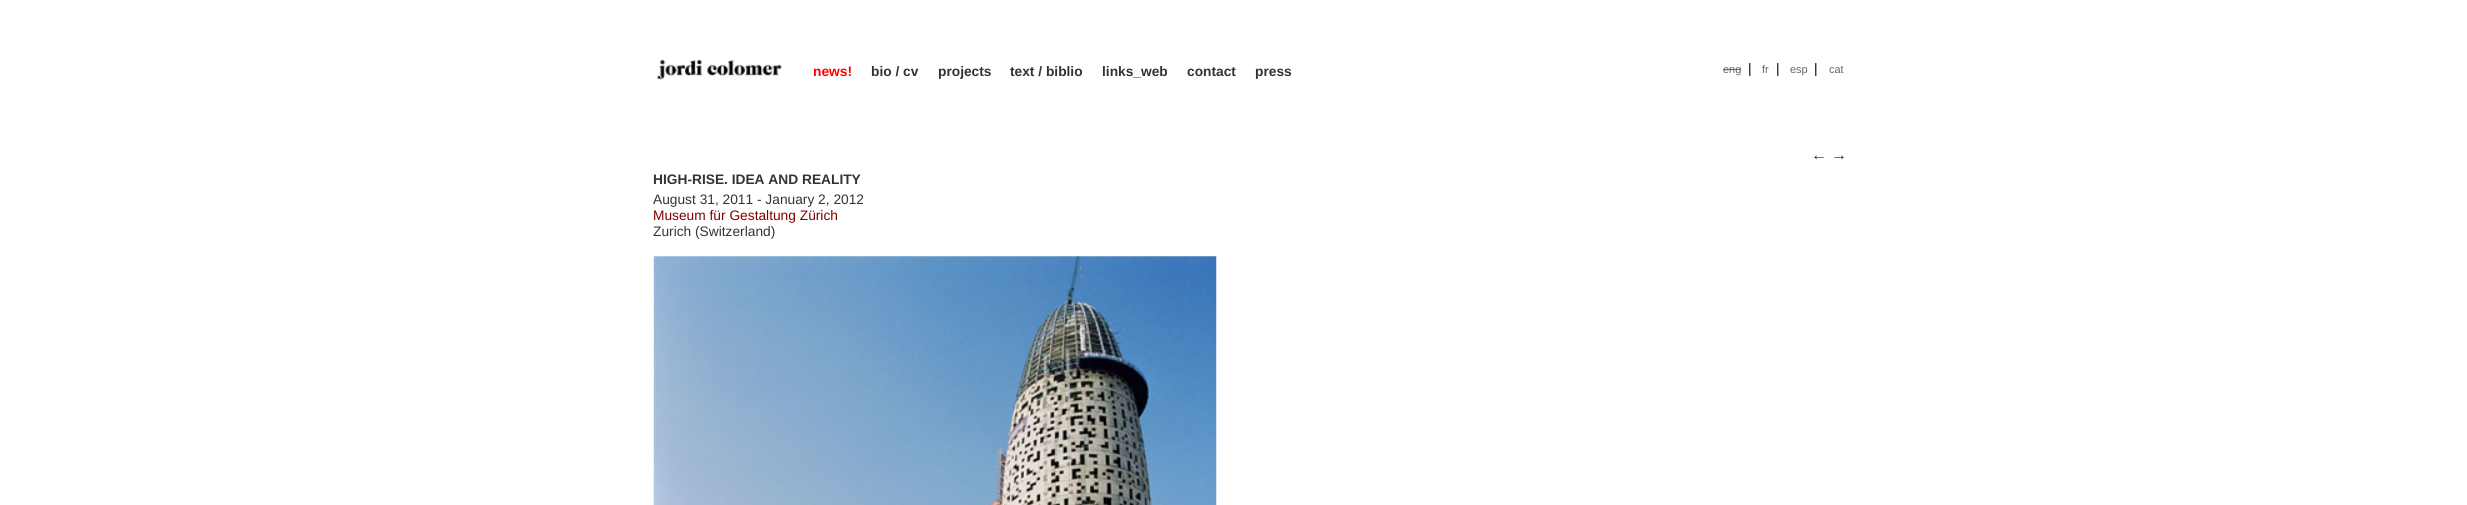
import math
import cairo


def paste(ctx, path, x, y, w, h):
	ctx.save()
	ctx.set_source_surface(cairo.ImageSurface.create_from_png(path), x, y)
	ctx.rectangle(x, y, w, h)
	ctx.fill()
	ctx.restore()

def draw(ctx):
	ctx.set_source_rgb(1, 1, 1)
	ctx.paint()
	paste(ctx, 'media/1.png', 657, 59, 125, 22)
	ctx.select_font_face('Liberation Sans', cairo.FONT_SLANT_NORMAL, cairo.FONT_WEIGHT_BOLD)
	ctx.set_font_size(13.75)
	ctx.set_source_rgb(1, 0, 0)
	ctx.move_to(813, 76)
	ctx.show_text('news!')
	ctx.set_source_rgb(0.2, 0.2, 0.2)
	for x, y, s in [
		(871, 76, 'bio / cv'),
		(938, 76, 'projects'),
		(1010, 76, 'text / biblio'),
		(1102, 76, 'links_web'),
		(1187, 76, 'contact'),
		(1255, 76, 'press'),
	]:
		ctx.move_to(x, y)
		ctx.show_text(s)
	ctx.select_font_face('Liberation Sans')
	ctx.set_font_size(11)
	ctx.set_source_rgb(0.4, 0.4, 0.4)
	ctx.move_to(1723, 73)
	ctx.show_text('eng')
	ctx.rectangle(1723, 69, 18, 1)
	ctx.fill()
	ctx.set_font_size(13.75)
	ctx.set_source_rgb(0, 0, 0)
	ctx.move_to(1748, 73)
	ctx.show_text('|')
	ctx.set_font_size(11)
	ctx.set_source_rgb(0.4, 0.4, 0.4)
	ctx.move_to(1762, 73)
	ctx.show_text('fr')
	ctx.set_font_size(13.75)
	ctx.set_source_rgb(0, 0, 0)
	ctx.move_to(1776, 73)
	ctx.show_text('|')
	ctx.set_font_size(11)
	ctx.set_source_rgb(0.4, 0.4, 0.4)
	ctx.move_to(1790, 73)
	ctx.show_text('esp')
	ctx.set_font_size(13.75)
	ctx.set_source_rgb(0, 0, 0)
	ctx.move_to(1814, 73)
	ctx.show_text('|')
	ctx.set_font_size(11)
	ctx.set_source_rgb(0.4, 0.4, 0.4)
	ctx.move_to(1829, 73)
	ctx.show_text('cat')
	ctx.set_font_size(16)
	ctx.set_source_rgb(0.2, 0.2, 0.2)
	ctx.move_to(1811, 160)
	ctx.show_text('←')
	ctx.move_to(1831, 160)
	ctx.show_text('→')
	ctx.select_font_face('Liberation Sans', cairo.FONT_SLANT_NORMAL, cairo.FONT_WEIGHT_BOLD)
	ctx.set_font_size(13.75)
	ctx.move_to(653, 184)
	ctx.show_text('HIGH-RISE. IDEA AND REALITY')
	ctx.select_font_face('Liberation Sans')
	ctx.move_to(653, 204)
	ctx.show_text('August 31, 2011 - January 2, 2012')
	ctx.set_source_rgb(0.502, 0, 0)
	ctx.move_to(653, 220)
	ctx.show_text('Museum für Gestaltung Zürich')
	ctx.set_source_rgb(0.2, 0.2, 0.2)
	ctx.move_to(653, 236)
	ctx.show_text('Zurich (Switzerland)')
	paste(ctx, 'media/2.png', 653, 256, 564, 249)


surface = cairo.ImageSurface(cairo.FORMAT_RGB24, 2467, 505)
ctx = cairo.Context(surface)
options = cairo.FontOptions()
options.set_hint_metrics(cairo.HINT_METRICS_OFF)
options.set_hint_style(cairo.HINT_STYLE_NONE)
ctx.set_font_options(options)
ctx.set_miter_limit(4)
draw(ctx)
surface.write_to_png('image.png')
